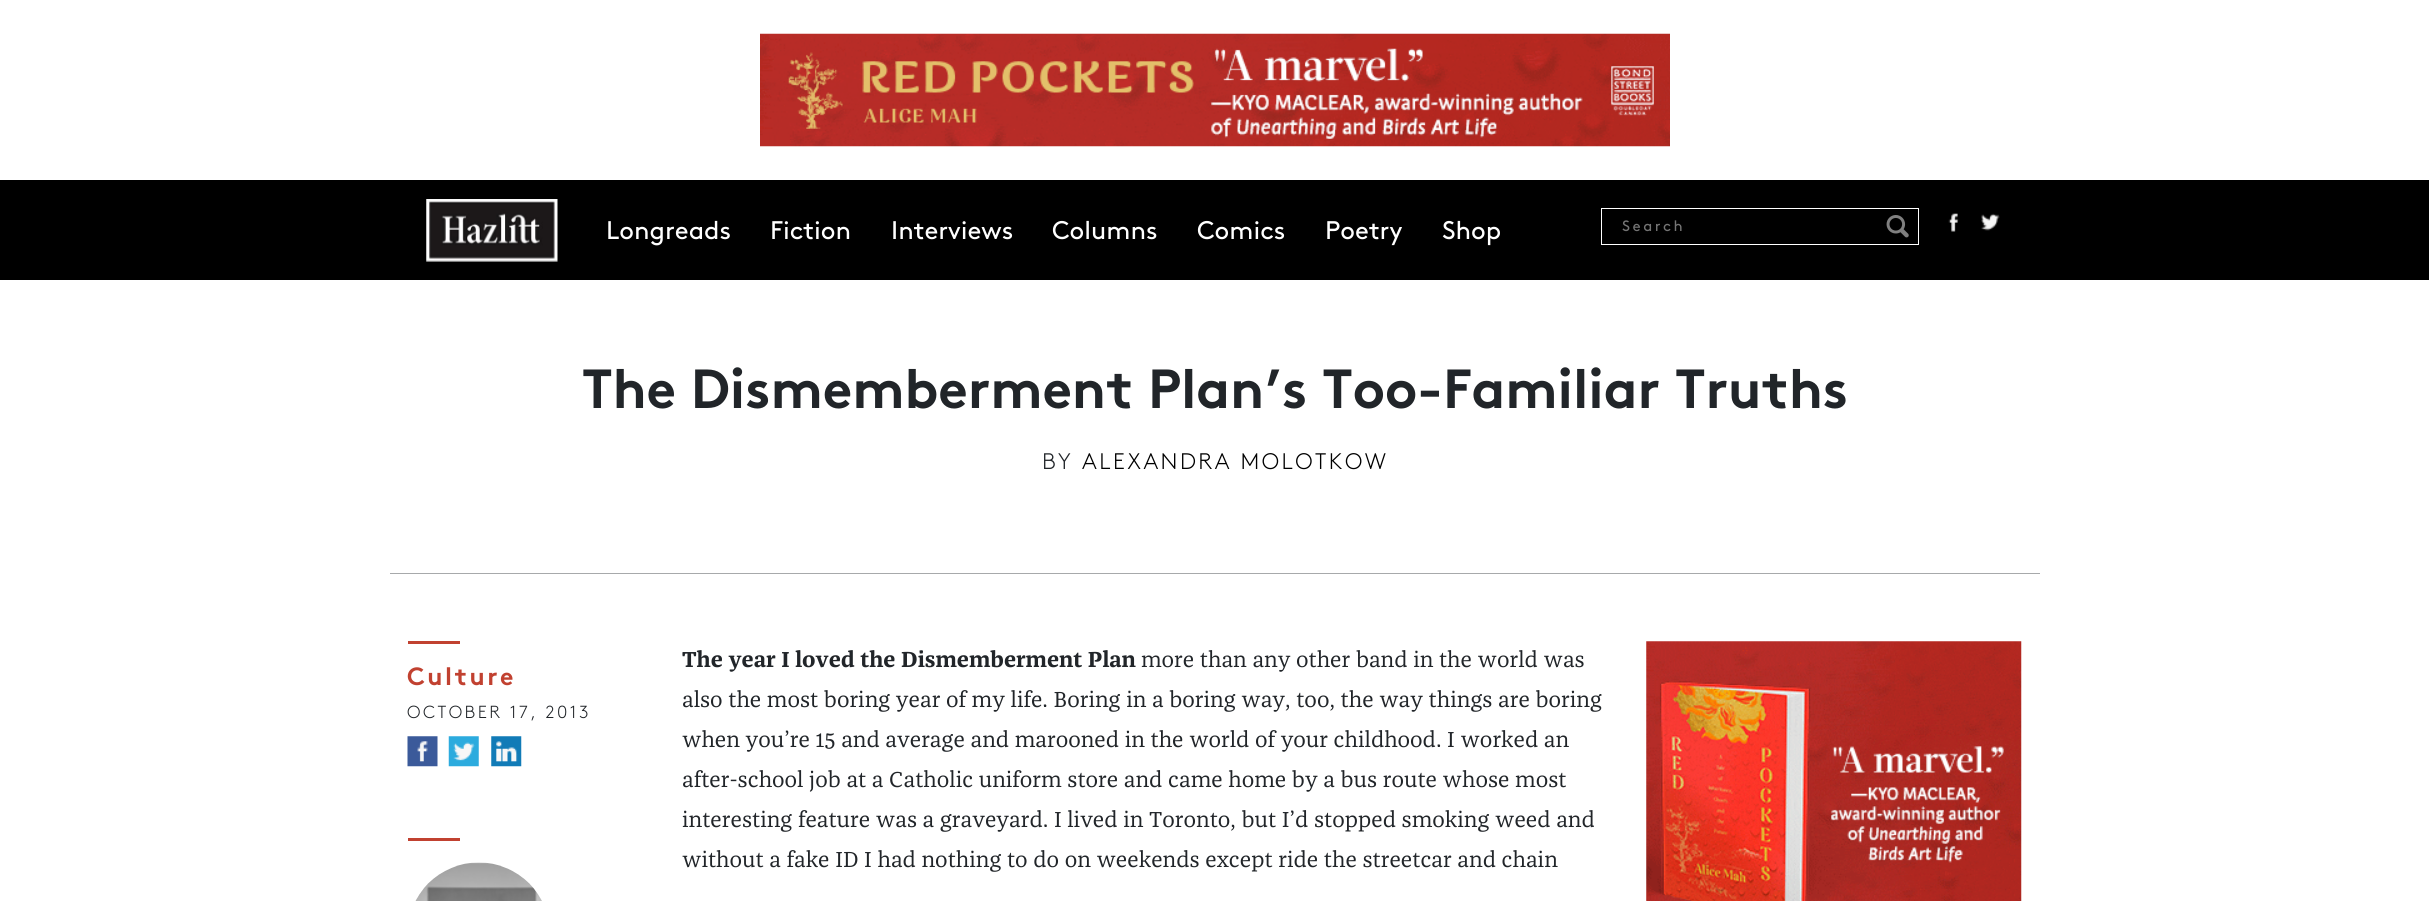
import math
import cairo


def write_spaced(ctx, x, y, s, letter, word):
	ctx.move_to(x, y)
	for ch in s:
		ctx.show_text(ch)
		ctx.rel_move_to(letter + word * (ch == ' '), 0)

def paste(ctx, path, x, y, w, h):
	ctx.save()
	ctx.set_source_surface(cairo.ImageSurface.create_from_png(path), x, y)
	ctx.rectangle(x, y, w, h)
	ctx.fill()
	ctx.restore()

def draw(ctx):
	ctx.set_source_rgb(1, 1, 1)
	ctx.paint()
	paste(ctx, 'media/1.png', 760, 33, 910, 114)
	ctx.set_source_rgb(0, 0, 0)
	ctx.rectangle(0, 180, 2429, 100)
	ctx.fill()
	paste(ctx, 'media/2.png', 426, 199, 132, 63)
	ctx.select_font_face('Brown')
	ctx.set_font_size(25.5)
	ctx.set_source_rgb(1, 1, 1)
	for x, y, s in [
		(606, 239, 'Longreads'),
		(770, 239, 'Fiction'),
		(891, 239, 'Interviews'),
		(1052, 239, 'Columns'),
		(1197, 239, 'Comics'),
		(1325, 239, 'Poetry'),
		(1442, 239, 'Shop'),
	]:
		ctx.move_to(x, y)
		ctx.show_text(s)
	ctx.rectangle(1601.5, 208.5, 317, 36)
	ctx.set_line_width(1)
	ctx.stroke()
	ctx.set_font_size(15)
	ctx.set_source_rgb(0.459, 0.459, 0.459)
	write_spaced(ctx, 1622, 231, 'Search', 2.5, 0)
	paste(ctx, 'media/3.png', 1886, 215, 23, 23)
	paste(ctx, 'media/4.png', 1948, 213, 11, 19)
	paste(ctx, 'media/5.png', 1981, 213, 19, 18)
	ctx.set_source_rgb(0.655, 0.663, 0.671)
	ctx.rectangle(390, 573, 1650, 1)
	ctx.fill()
	ctx.select_font_face('Brown', cairo.FONT_SLANT_NORMAL, cairo.FONT_WEIGHT_BOLD)
	ctx.set_font_size(55)
	ctx.set_source_rgb(0.129, 0.145, 0.161)
	ctx.move_to(582, 408)
	ctx.show_text('The Dismemberment Plan’s Too-Familiar Truths')
	ctx.select_font_face('Brown Light')
	ctx.set_font_size(22.5)
	write_spaced(ctx, 1042, 469, 'BY', 2.5, 0)
	ctx.set_source_rgb(0, 0, 0)
	write_spaced(ctx, 1082, 469, 'ALEXANDRA MOLOTKOW', 2.5, 0)
	ctx.set_source_rgb(0.757, 0.255, 0.188)
	ctx.rectangle(408, 641, 52, 3)
	ctx.fill()
	ctx.select_font_face('Brown', cairo.FONT_SLANT_NORMAL, cairo.FONT_WEIGHT_BOLD)
	ctx.set_font_size(25)
	write_spaced(ctx, 407, 685, 'Culture', 2.5, 0)
	ctx.select_font_face('Brown Light')
	ctx.set_font_size(17.5)
	ctx.set_source_rgb(0.129, 0.145, 0.161)
	write_spaced(ctx, 407, 718, 'OCTOBER 17, 2013', 2.5, 0)
	paste(ctx, 'media/6.png', 407, 736, 31, 31)
	paste(ctx, 'media/7.png', 448, 736, 31, 31)
	paste(ctx, 'media/8.png', 491, 736, 31, 31)
	ctx.set_source_rgb(0.757, 0.255, 0.188)
	ctx.rectangle(408, 838, 52, 3)
	ctx.fill()
	paste(ctx, 'media/9.png', 415, 862, 127, 39)
	ctx.select_font_face('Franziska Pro', cairo.FONT_SLANT_NORMAL, cairo.FONT_WEIGHT_BOLD)
	ctx.set_font_size(22.5)
	ctx.set_source_rgb(0.129, 0.145, 0.161)
	ctx.move_to(682, 667)
	ctx.show_text('The year I loved the Dismemberment Plan')
	ctx.select_font_face('Franziska Pro')
	for x, y, s in [
		(1141, 667, 'more than any other band in the world was'),
		(682, 707, 'also the most boring year of my life. Boring in a boring way, too, the way things are boring'),
		(682, 747, 'when you’re 15 and average and marooned in the world of your childhood. I worked an'),
		(682, 787, 'after-school job at a Catholic uniform store and came home by a bus route whose most'),
		(682, 827, 'interesting feature was a graveyard. I lived in Toronto, but I’d stopped smoking weed and'),
		(682, 867, 'without a fake ID I had nothing to do on weekends except ride the streetcar and chain'),
	]:
		ctx.move_to(x, y)
		ctx.show_text(s)
	paste(ctx, 'media/10.png', 1646, 641, 376, 260)


surface = cairo.ImageSurface(cairo.FORMAT_RGB24, 2429, 901)
ctx = cairo.Context(surface)
options = cairo.FontOptions()
options.set_hint_metrics(cairo.HINT_METRICS_OFF)
options.set_hint_style(cairo.HINT_STYLE_NONE)
ctx.set_font_options(options)
ctx.set_miter_limit(4)
draw(ctx)
surface.write_to_png('image.png')
